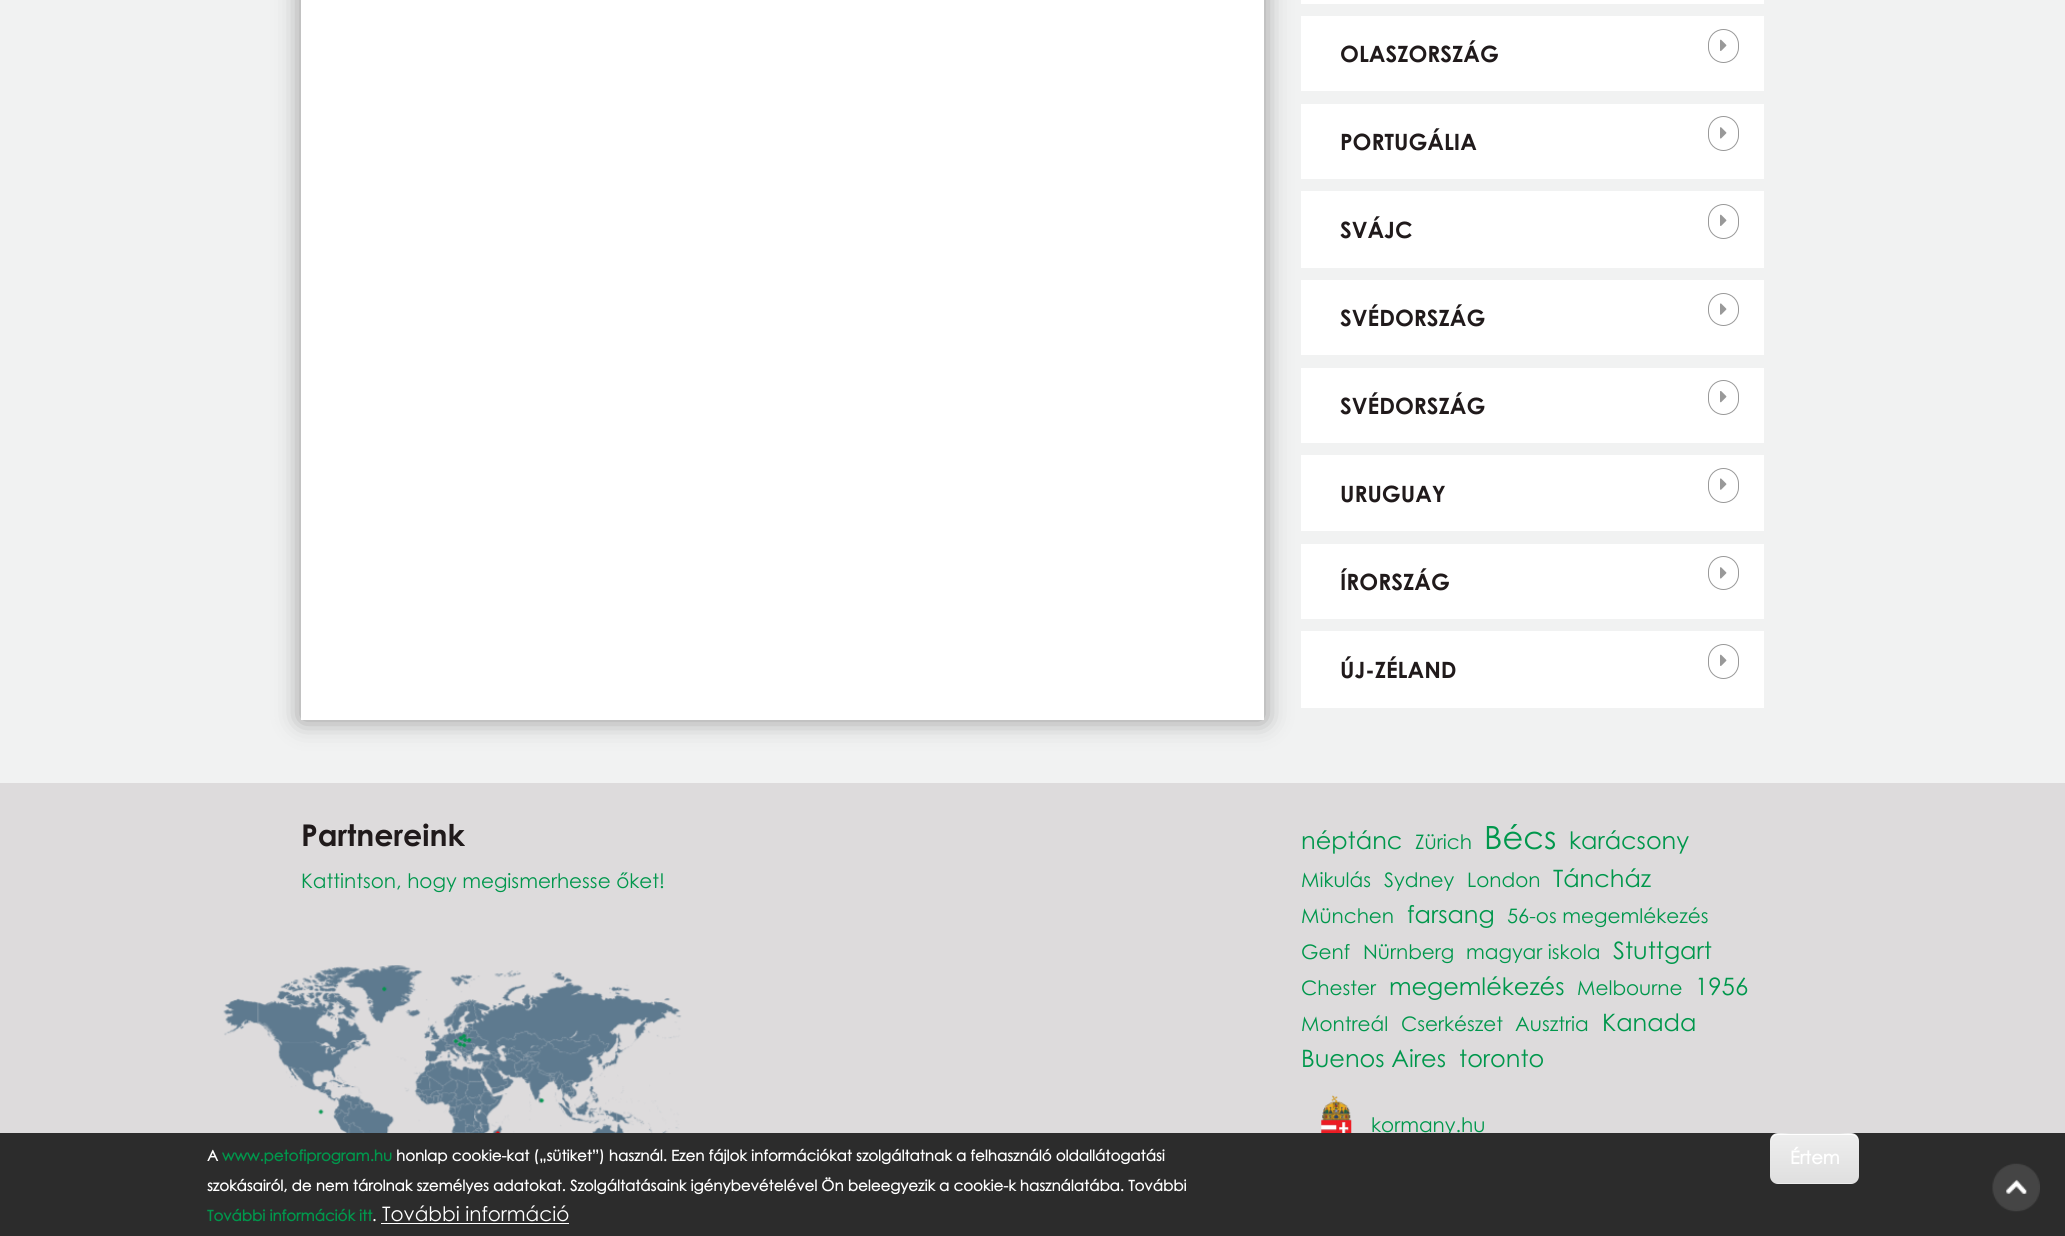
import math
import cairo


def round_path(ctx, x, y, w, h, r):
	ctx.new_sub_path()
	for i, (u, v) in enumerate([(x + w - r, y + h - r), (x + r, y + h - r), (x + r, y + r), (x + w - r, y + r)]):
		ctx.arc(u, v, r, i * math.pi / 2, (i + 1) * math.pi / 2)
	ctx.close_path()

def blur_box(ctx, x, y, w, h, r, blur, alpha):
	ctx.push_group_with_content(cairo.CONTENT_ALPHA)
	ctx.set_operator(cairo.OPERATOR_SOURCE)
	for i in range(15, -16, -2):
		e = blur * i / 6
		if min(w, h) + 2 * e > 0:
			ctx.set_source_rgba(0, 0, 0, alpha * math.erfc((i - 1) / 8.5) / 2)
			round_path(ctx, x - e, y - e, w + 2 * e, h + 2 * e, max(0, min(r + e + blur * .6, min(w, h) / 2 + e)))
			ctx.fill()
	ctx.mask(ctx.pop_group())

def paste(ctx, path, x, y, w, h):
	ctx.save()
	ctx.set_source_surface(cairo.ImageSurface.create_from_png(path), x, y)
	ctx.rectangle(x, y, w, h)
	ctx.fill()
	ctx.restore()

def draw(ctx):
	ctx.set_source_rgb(0.945, 0.949, 0.949)
	ctx.paint()
	ctx.set_source_rgb(0.196, 0.196, 0.196)
	blur_box(ctx, 301, -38, 963, 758, 0, 12.5, 0.5)
	ctx.set_source_rgb(1, 1, 1)
	ctx.rectangle(301, 0, 963, 720)
	ctx.rectangle(1301, 0, 463, 4)
	ctx.rectangle(1301, 16, 463, 75)
	ctx.fill()
	ctx.select_font_face('Century Gothic', cairo.FONT_SLANT_NORMAL, cairo.FONT_WEIGHT_BOLD)
	ctx.set_font_size(22.5)
	ctx.set_source_rgb(0.125, 0.102, 0.106)
	ctx.move_to(1340, 62)
	ctx.show_text('OLASZORSZÁG')
	round_path(ctx, 1708.5, 29.5, 30, 33, 15)
	ctx.set_source_rgb(0.6, 0.6, 0.6)
	ctx.set_line_width(1)
	ctx.stroke()
	paste(ctx, 'media/1.png', 1720, 39, 7, 12)
	ctx.set_source_rgb(1, 1, 1)
	ctx.rectangle(1301, 104, 463, 75)
	ctx.fill()
	ctx.set_source_rgb(0.125, 0.102, 0.106)
	ctx.move_to(1340, 150)
	ctx.show_text('PORTUGÁLIA')
	round_path(ctx, 1708.5, 116.5, 30, 34, 15)
	ctx.set_source_rgb(0.6, 0.6, 0.6)
	ctx.stroke()
	paste(ctx, 'media/2.png', 1720, 127, 7, 12)
	ctx.set_source_rgb(1, 1, 1)
	ctx.rectangle(1301, 191, 463, 77)
	ctx.fill()
	ctx.set_source_rgb(0.125, 0.102, 0.106)
	ctx.move_to(1340, 238)
	ctx.show_text('SVÁJC')
	round_path(ctx, 1708.5, 204.5, 30, 34, 15)
	ctx.set_source_rgb(0.6, 0.6, 0.6)
	ctx.stroke()
	paste(ctx, 'media/1.png', 1720, 214, 7, 12)
	ctx.set_source_rgb(1, 1, 1)
	ctx.rectangle(1301, 280, 463, 75)
	ctx.fill()
	ctx.set_source_rgb(0.125, 0.102, 0.106)
	ctx.move_to(1340, 326)
	ctx.show_text('SVÉDORSZÁG')
	round_path(ctx, 1708.5, 293.5, 30, 32, 15)
	ctx.set_source_rgb(0.6, 0.6, 0.6)
	ctx.stroke()
	paste(ctx, 'media/3.png', 1720, 303, 7, 12)
	ctx.set_source_rgb(1, 1, 1)
	ctx.rectangle(1301, 368, 463, 75)
	ctx.fill()
	ctx.set_source_rgb(0.125, 0.102, 0.106)
	ctx.move_to(1340, 414)
	ctx.show_text('SVÉDORSZÁG')
	round_path(ctx, 1708.5, 380.5, 30, 34, 15)
	ctx.set_source_rgb(0.6, 0.6, 0.6)
	ctx.stroke()
	paste(ctx, 'media/4.png', 1720, 391, 7, 12)
	ctx.set_source_rgb(1, 1, 1)
	ctx.rectangle(1301, 455, 463, 76)
	ctx.fill()
	ctx.set_source_rgb(0.125, 0.102, 0.106)
	ctx.move_to(1340, 502)
	ctx.show_text('URUGUAY')
	round_path(ctx, 1708.5, 468.5, 30, 34, 15)
	ctx.set_source_rgb(0.6, 0.6, 0.6)
	ctx.stroke()
	paste(ctx, 'media/3.png', 1720, 478, 7, 12)
	ctx.set_source_rgb(1, 1, 1)
	ctx.rectangle(1301, 544, 463, 75)
	ctx.fill()
	ctx.set_source_rgb(0.125, 0.102, 0.106)
	ctx.move_to(1340, 590)
	ctx.show_text('ÍRORSZÁG')
	round_path(ctx, 1708.5, 556.5, 30, 33, 15)
	ctx.set_source_rgb(0.6, 0.6, 0.6)
	ctx.stroke()
	paste(ctx, 'media/2.png', 1720, 567, 7, 12)
	ctx.set_source_rgb(1, 1, 1)
	ctx.rectangle(1301, 631, 463, 77)
	ctx.fill()
	ctx.set_source_rgb(0.125, 0.102, 0.106)
	ctx.move_to(1340, 678)
	ctx.show_text('ÚJ-ZÉLAND')
	round_path(ctx, 1708.5, 644.5, 30, 34, 15)
	ctx.set_source_rgb(0.6, 0.6, 0.6)
	ctx.stroke()
	paste(ctx, 'media/1.png', 1720, 654, 7, 12)
	ctx.set_source_rgb(0.867, 0.859, 0.863)
	ctx.rectangle(0, 783, 2065, 350)
	ctx.fill()
	ctx.set_font_size(30)
	ctx.set_source_rgb(0.125, 0.102, 0.106)
	ctx.move_to(301, 846)
	ctx.show_text('Partnereink')
	ctx.select_font_face('Century Gothic')
	ctx.set_font_size(20)
	ctx.set_source_rgb(0, 0.592, 0.298)
	ctx.move_to(301, 888)
	ctx.show_text('Kattintson, hogy megismerhesse őket!')
	paste(ctx, 'media/5.png', 223, 965, 459, 168)
	ctx.set_font_size(24)
	ctx.move_to(1301, 849)
	ctx.show_text('néptánc')
	ctx.set_font_size(20)
	ctx.move_to(1415, 849)
	ctx.show_text('Zürich')
	ctx.set_font_size(32)
	ctx.move_to(1484, 849)
	ctx.show_text('Bécs')
	ctx.set_font_size(24)
	ctx.move_to(1569, 849)
	ctx.show_text('karácsony')
	ctx.set_font_size(20)
	for x, y, s in [
		(1301, 887, 'Mikulás'),
		(1384, 887, 'Sydney'),
		(1467, 887, 'London'),
	]:
		ctx.move_to(x, y)
		ctx.show_text(s)
	ctx.set_font_size(24)
	ctx.move_to(1553, 887)
	ctx.show_text('Táncház')
	ctx.set_font_size(20)
	ctx.move_to(1301, 923)
	ctx.show_text('München')
	ctx.set_font_size(24)
	ctx.move_to(1407, 923)
	ctx.show_text('farsang')
	ctx.set_font_size(20)
	for x, y, s in [
		(1507, 923, '56-os megemlékezés'),
		(1301, 959, 'Genf'),
		(1363, 959, 'Nürnberg'),
		(1466, 959, 'magyar iskola'),
	]:
		ctx.move_to(x, y)
		ctx.show_text(s)
	ctx.set_font_size(24)
	ctx.move_to(1613, 959)
	ctx.show_text('Stuttgart')
	ctx.set_font_size(20)
	ctx.move_to(1301, 995)
	ctx.show_text('Chester')
	ctx.set_font_size(24)
	ctx.move_to(1389, 995)
	ctx.show_text('megemlékezés')
	ctx.set_font_size(20)
	ctx.move_to(1577, 995)
	ctx.show_text('Melbourne')
	ctx.set_font_size(24)
	ctx.move_to(1695, 995)
	ctx.show_text('1956')
	ctx.set_font_size(20)
	for x, y, s in [
		(1301, 1031, 'Montreál'),
		(1401, 1031, 'Cserkészet'),
		(1515, 1031, 'Ausztria'),
	]:
		ctx.move_to(x, y)
		ctx.show_text(s)
	ctx.set_font_size(24)
	for x, y, s in [
		(1602, 1031, 'Kanada'),
		(1301, 1067, 'Buenos Aires'),
		(1459, 1067, 'toronto'),
	]:
		ctx.move_to(x, y)
		ctx.show_text(s)
	paste(ctx, 'media/6.png', 1321, 1095, 31, 38)
	ctx.set_font_size(20)
	ctx.move_to(1371, 1132)
	ctx.show_text('kormany.hu')
	ctx.set_source_rgb(0.173, 0.173, 0.173)
	ctx.rectangle(0, 1133, 2065, 103)
	ctx.fill()
	ctx.select_font_face('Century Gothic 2', cairo.FONT_SLANT_NORMAL, cairo.FONT_WEIGHT_BOLD)
	ctx.set_font_size(15)
	ctx.set_source_rgb(1, 1, 1)
	ctx.move_to(207, 1161)
	ctx.show_text('A')
	ctx.set_source_rgb(0, 0.592, 0.298)
	ctx.move_to(222, 1161)
	ctx.show_text('www.petofiprogram.hu')
	ctx.set_source_rgb(1, 1, 1)
	ctx.move_to(396, 1161)
	ctx.show_text('honlap cookie-kat („sütiket”) használ. Ezen fájlok információkat szolgáltatnak a felhasználó oldallátogatási')
	ctx.move_to(207, 1191)
	ctx.show_text('szokásairól, de nem tárolnak személyes adatokat. Szolgáltatásaink igénybevételével Ön beleegyezik a cookie-k használatába. További')
	ctx.set_source_rgb(0, 0.592, 0.298)
	ctx.move_to(207, 1221)
	ctx.show_text('További információk itt')
	ctx.set_source_rgb(1, 1, 1)
	ctx.move_to(372, 1221)
	ctx.show_text('.')
	ctx.select_font_face('Century Gothic')
	ctx.set_font_size(20)
	ctx.move_to(382, 1221)
	ctx.show_text('További információ')
	ctx.rectangle(381, 1223, 188, 1)
	ctx.fill()
	ctx.save()
	round_path(ctx, 1770, 1133, 89, 51, 8)
	ctx.clip()
	gradient = cairo.LinearGradient(1814, 1085, 1814, 1134)
	gradient.add_color_stop_rgba(0.05, 0.929, 0.929, 0.929, 1)
	gradient.add_color_stop_rgba(1, 0.875, 0.875, 0.875, 1)
	ctx.set_source(gradient)
	ctx.rectangle(1770, 1133, 89, 1)
	ctx.fill()
	gradient = cairo.LinearGradient(1814, 1134, 1814, 1183)
	gradient.add_color_stop_rgba(0.05, 0.929, 0.929, 0.929, 1)
	gradient.add_color_stop_rgba(1, 0.875, 0.875, 0.875, 1)
	ctx.set_source(gradient)
	ctx.rectangle(1770, 1134, 89, 49)
	ctx.fill()
	gradient = cairo.LinearGradient(1814, 1183, 1814, 1231)
	gradient.add_color_stop_rgba(0.05, 0.929, 0.929, 0.929, 1)
	gradient.add_color_stop_rgba(1, 0.875, 0.875, 0.875, 1)
	ctx.set_source(gradient)
	ctx.rectangle(1770, 1183, 89, 1)
	ctx.fill()
	ctx.restore()
	ctx.new_path()
	ctx.move_to(1778, 1135)
	ctx.line_to(1851, 1135)
	ctx.curve_to(1855, 1135, 1858, 1138, 1858, 1141)
	ctx.curve_to(1858, 1131, 1846, 1134, 1840, 1134)
	ctx.line_to(1790, 1134)
	ctx.curve_to(1783, 1134, 1771, 1131, 1771, 1141)
	ctx.curve_to(1771, 1138, 1774, 1135, 1778, 1135)
	ctx.close_path()
	ctx.fill()
	ctx.select_font_face('Century Gothic 2', cairo.FONT_SLANT_NORMAL, cairo.FONT_WEIGHT_BOLD)
	ctx.set_font_size(18)
	ctx.move_to(1790, 1164)
	ctx.show_text('Értem')
	paste(ctx, 'media/7.png', 1992, 1163, 48, 49)


surface = cairo.ImageSurface(cairo.FORMAT_RGB24, 2065, 1236)
ctx = cairo.Context(surface)
options = cairo.FontOptions()
options.set_hint_metrics(cairo.HINT_METRICS_OFF)
options.set_hint_style(cairo.HINT_STYLE_NONE)
ctx.set_font_options(options)
ctx.set_miter_limit(4)
draw(ctx)
surface.write_to_png('image.png')
